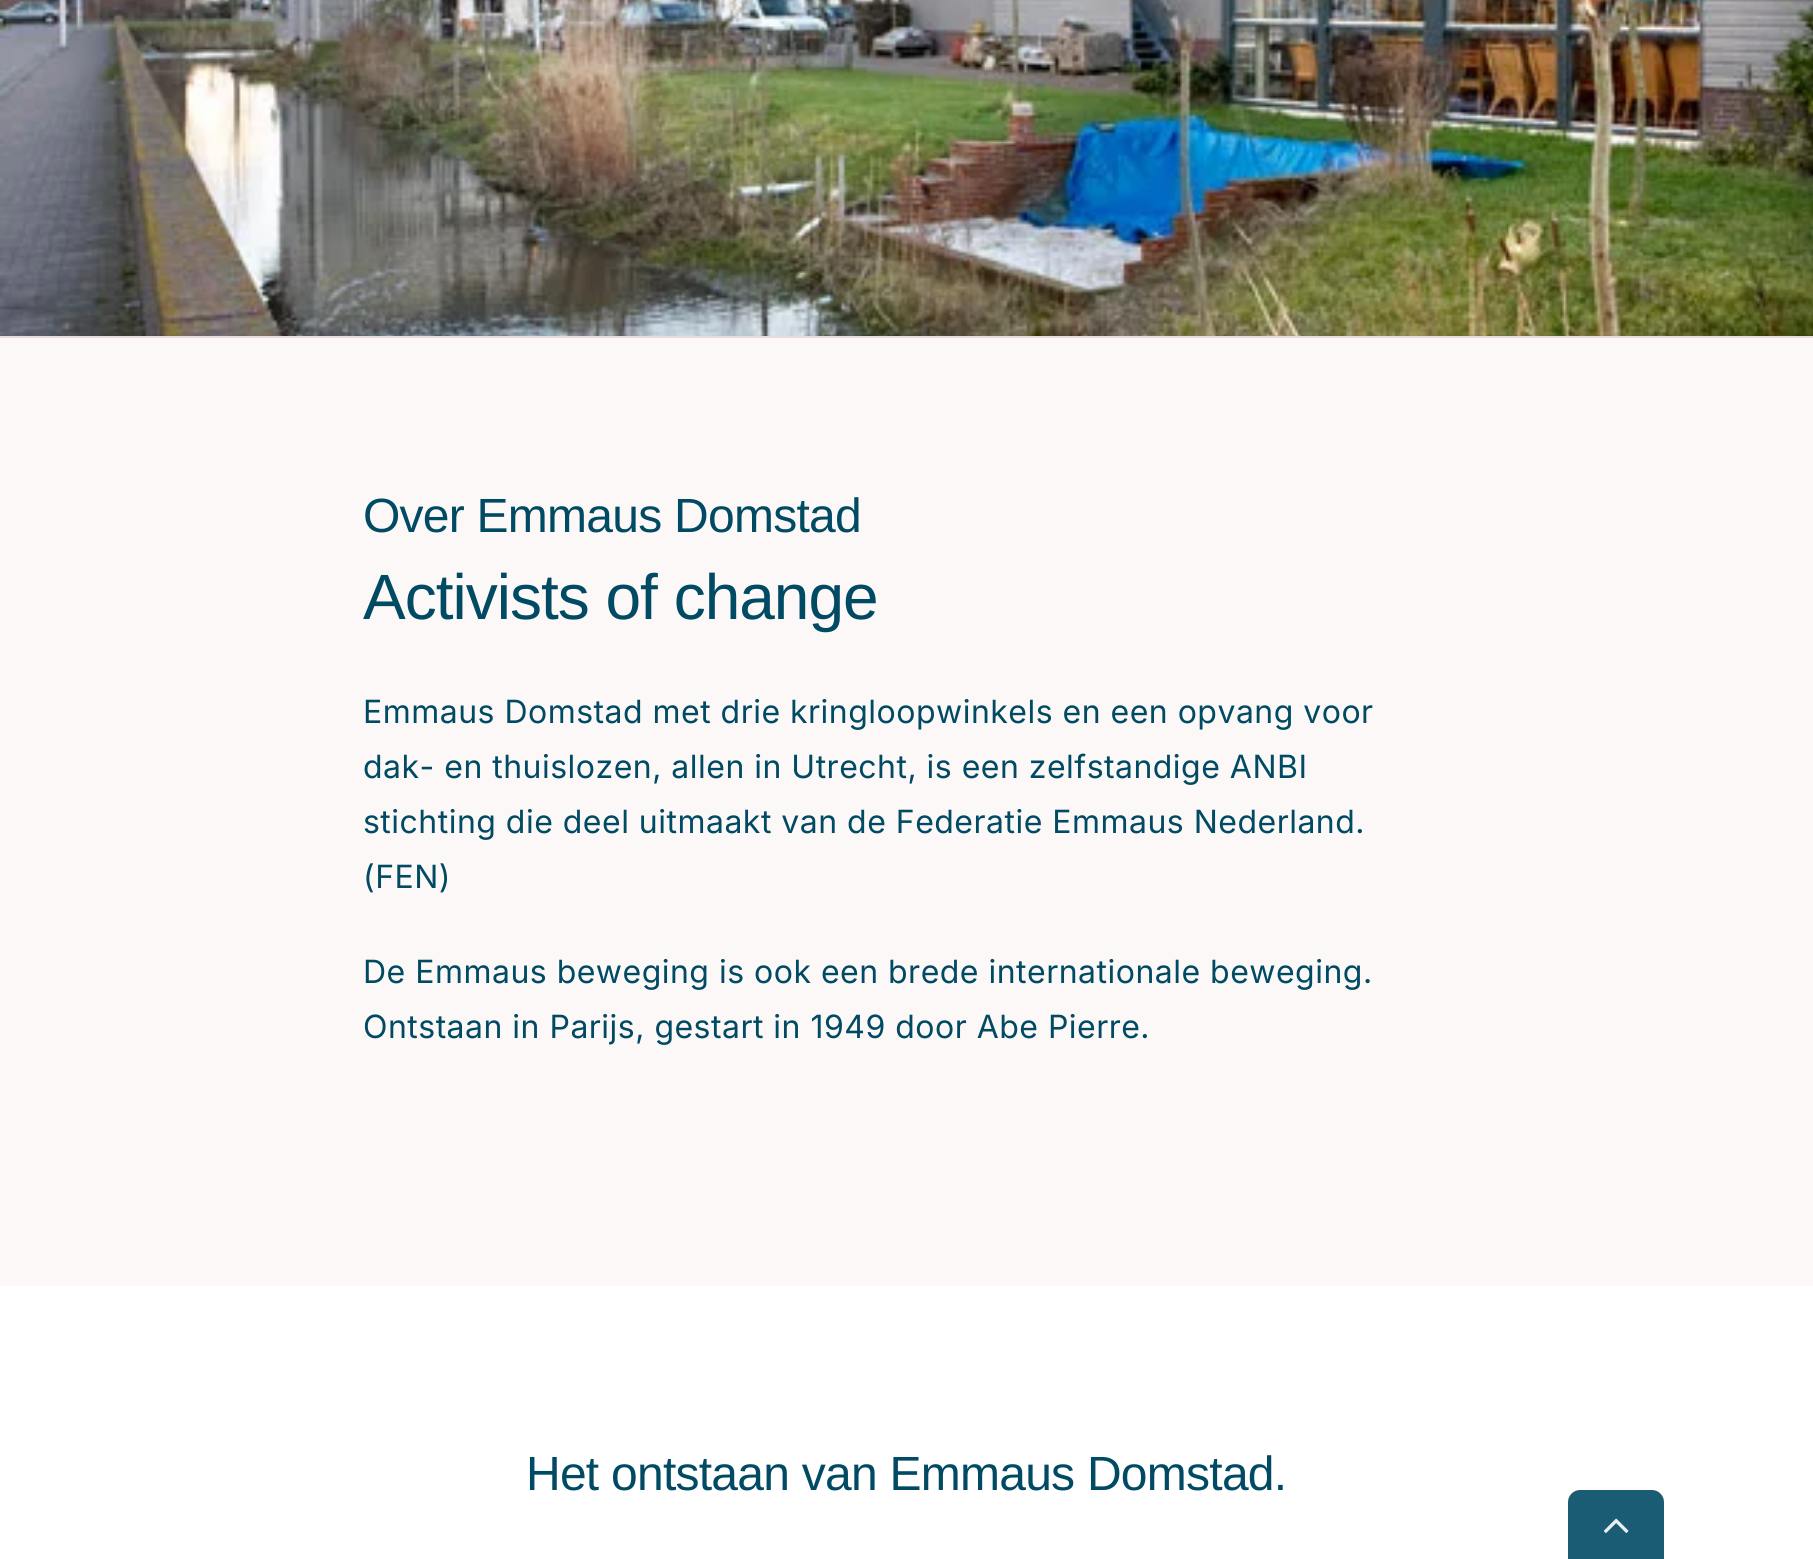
import math
import cairo


def write_spaced(ctx, x, y, s, letter, word):
	ctx.move_to(x, y)
	for ch in s:
		ctx.show_text(ch)
		ctx.rel_move_to(letter + word * (ch == ' '), 0)

def paste(ctx, path, x, y, w, h):
	ctx.save()
	ctx.set_source_surface(cairo.ImageSurface.create_from_png(path), x, y)
	ctx.rectangle(x, y, w, h)
	ctx.fill()
	ctx.restore()

def draw(ctx):
	ctx.set_source_rgb(1, 1, 1)
	ctx.paint()
	paste(ctx, 'media/1.png', 0, 0, 1813, 336)
	ctx.set_source_rgb(0.988, 0.969, 0.965)
	ctx.rectangle(0, 338, 1813, 948)
	ctx.fill()
	ctx.set_source_rgb(0.906, 0.863, 0.855)
	ctx.rectangle(0, 336, 1813, 2)
	ctx.fill()
	ctx.select_font_face('Liberation Sans')
	ctx.set_font_size(48)
	ctx.set_source_rgb(0, 0.29, 0.388)
	write_spaced(ctx, 363, 532, 'Over Emmaus Domstad', -0.75, 0)
	ctx.set_font_size(64)
	write_spaced(ctx, 363, 619, 'Activists of change', -1, 0)
	ctx.select_font_face('Inter')
	ctx.set_font_size(32)
	for x, y, s in [
		(363, 723, 'Emmaus Domstad met drie kringloopwinkels en een opvang voor'),
		(363, 778, 'dak- en thuislozen, allen in Utrecht, is een zelfstandige ANBI'),
		(363, 833, 'stichting die deel uitmaakt van de Federatie Emmaus Nederland.'),
		(363, 888, '(FEN)'),
		(363, 983, 'De Emmaus beweging is ook een brede internationale beweging.'),
		(363, 1038, 'Ontstaan in Parijs, gestart in 1949 door Abe Pierre.'),
	]:
		write_spaced(ctx, x, y, s, 0.48, 0)
	ctx.select_font_face('Liberation Sans')
	ctx.set_font_size(48)
	write_spaced(ctx, 526, 1490, 'Het ontstaan van Emmaus Domstad.', -0.75, 0)
	ctx.set_source_rgb(0.102, 0.361, 0.451)
	ctx.new_path()
	ctx.move_to(1580, 1490)
	ctx.line_to(1652, 1490)
	ctx.curve_to(1658.5, 1490, 1664, 1495.5, 1664, 1502)
	ctx.line_to(1664, 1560)
	ctx.line_to(1568, 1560)
	ctx.line_to(1568, 1502)
	ctx.curve_to(1568, 1495.5, 1573.5, 1490, 1580, 1490)
	ctx.close_path()
	ctx.fill()
	paste(ctx, 'media/2.png', 1604, 1518, 25, 15)


surface = cairo.ImageSurface(cairo.FORMAT_RGB24, 1813, 1559)
ctx = cairo.Context(surface)
options = cairo.FontOptions()
options.set_hint_metrics(cairo.HINT_METRICS_OFF)
options.set_hint_style(cairo.HINT_STYLE_NONE)
ctx.set_font_options(options)
ctx.set_miter_limit(4)
draw(ctx)
surface.write_to_png('image.png')
